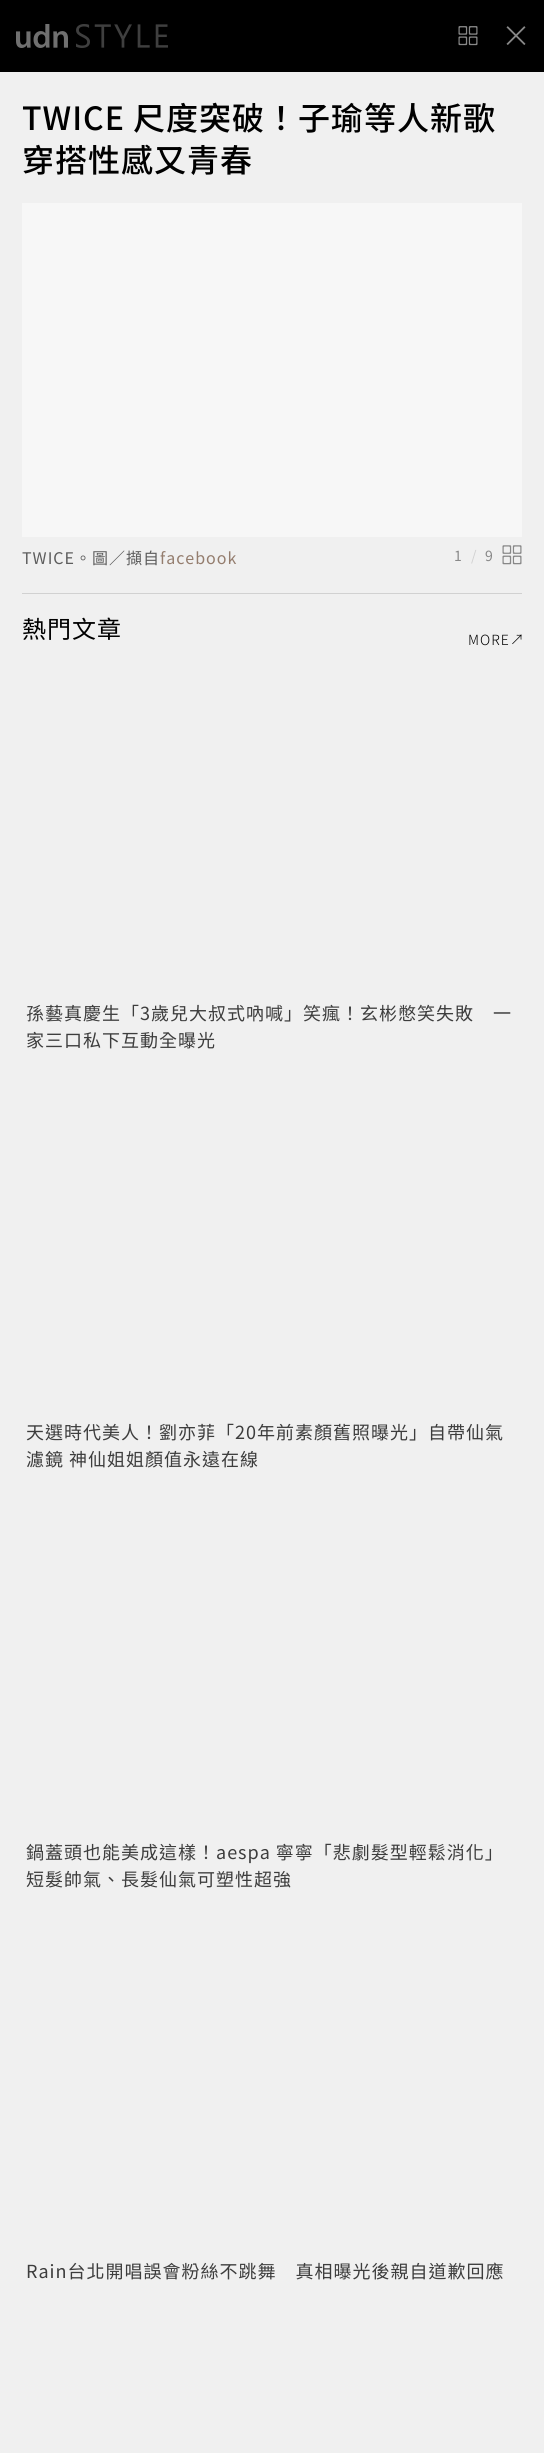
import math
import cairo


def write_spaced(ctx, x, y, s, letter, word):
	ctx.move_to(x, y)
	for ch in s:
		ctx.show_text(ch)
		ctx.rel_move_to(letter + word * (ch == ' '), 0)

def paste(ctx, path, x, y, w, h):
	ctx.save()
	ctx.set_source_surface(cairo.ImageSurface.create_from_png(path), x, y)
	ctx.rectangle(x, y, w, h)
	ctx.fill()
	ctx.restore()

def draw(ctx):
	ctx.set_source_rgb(0.941, 0.941, 0.941)
	ctx.paint()
	ctx.set_source_rgb(0, 0, 0)
	ctx.rectangle(0, 0, 544, 72)
	ctx.fill()
	paste(ctx, 'media/1.png', 16, 24, 52, 24)
	paste(ctx, 'media/2.png', 76, 24, 92, 24)
	paste(ctx, 'media/3.png', 458, 26, 20, 20)
	paste(ctx, 'media/4.png', 506, 26, 20, 19)
	ctx.select_font_face('Noto Sans TC Medium')
	ctx.set_font_size(32)
	write_spaced(ctx, 22, 130, 'TWICE 尺度突破！子瑜等人新歌', 1, 0)
	write_spaced(ctx, 22, 172, '穿搭性感又青春', 1, 0)
	ctx.set_source_rgb(0.965, 0.965, 0.965)
	ctx.rectangle(22, 203, 500, 334)
	ctx.fill()
	ctx.select_font_face('Noto Sans TC')
	ctx.set_font_size(16)
	ctx.set_source_rgb(0.365, 0.365, 0.365)
	write_spaced(ctx, 22, 564, 'TWICE。圖／擷自', 1, 0)
	ctx.set_source_rgb(0.58, 0.49, 0.431)
	write_spaced(ctx, 160, 564, 'facebook', 1, 0)
	ctx.set_font_size(14)
	ctx.set_source_rgb(0.533, 0.533, 0.533)
	write_spaced(ctx, 454, 561, '1', 1, 0)
	ctx.set_source_rgb(0.82, 0.82, 0.82)
	write_spaced(ctx, 471, 561, '/', 1, 0)
	ctx.set_source_rgb(0.533, 0.533, 0.533)
	write_spaced(ctx, 485, 561, '9', 1, 0)
	paste(ctx, 'media/5.png', 502, 545, 20, 20)
	ctx.set_source_rgb(0.82, 0.82, 0.82)
	ctx.rectangle(22, 593, 500, 1)
	ctx.fill()
	ctx.set_font_size(24)
	ctx.set_source_rgb(0, 0, 0)
	write_spaced(ctx, 22, 638, '熱門文章', 1, 0)
	ctx.select_font_face('Noto Sans TC Light')
	ctx.set_font_size(14)
	write_spaced(ctx, 468, 645, 'MORE', 1, 0)
	paste(ctx, 'media/6.png', 512, 634, 10, 11)
	ctx.select_font_face('Noto Sans TC')
	ctx.set_font_size(18)
	ctx.set_source_rgb(0.239, 0.239, 0.239)
	for x, y, s in [
		(26, 1020, '孫藝真慶生「3歲兒大叔式吶喊」笑瘋！玄彬憋笑失敗　一'),
		(26, 1047, '家三口私下互動全曝光'),
		(26, 1439, '天選時代美人！劉亦菲「20年前素顏舊照曝光」自帶仙氣'),
		(26, 1466, '濾鏡 神仙姐姐顏值永遠在線'),
		(26, 1859, '鍋蓋頭也能美成這樣！aespa 寧寧「悲劇髮型輕鬆消化」'),
		(26, 1886, '短髮帥氣、長髮仙氣可塑性超強'),
		(26, 2278, 'Rain台北開唱誤會粉絲不跳舞　真相曝光後親自道歉回應'),
	]:
		write_spaced(ctx, x, y, s, 1, 0)


surface = cairo.ImageSurface(cairo.FORMAT_RGB24, 544, 2453)
ctx = cairo.Context(surface)
options = cairo.FontOptions()
options.set_hint_metrics(cairo.HINT_METRICS_OFF)
options.set_hint_style(cairo.HINT_STYLE_NONE)
ctx.set_font_options(options)
ctx.set_miter_limit(4)
draw(ctx)
surface.write_to_png('image.png')
